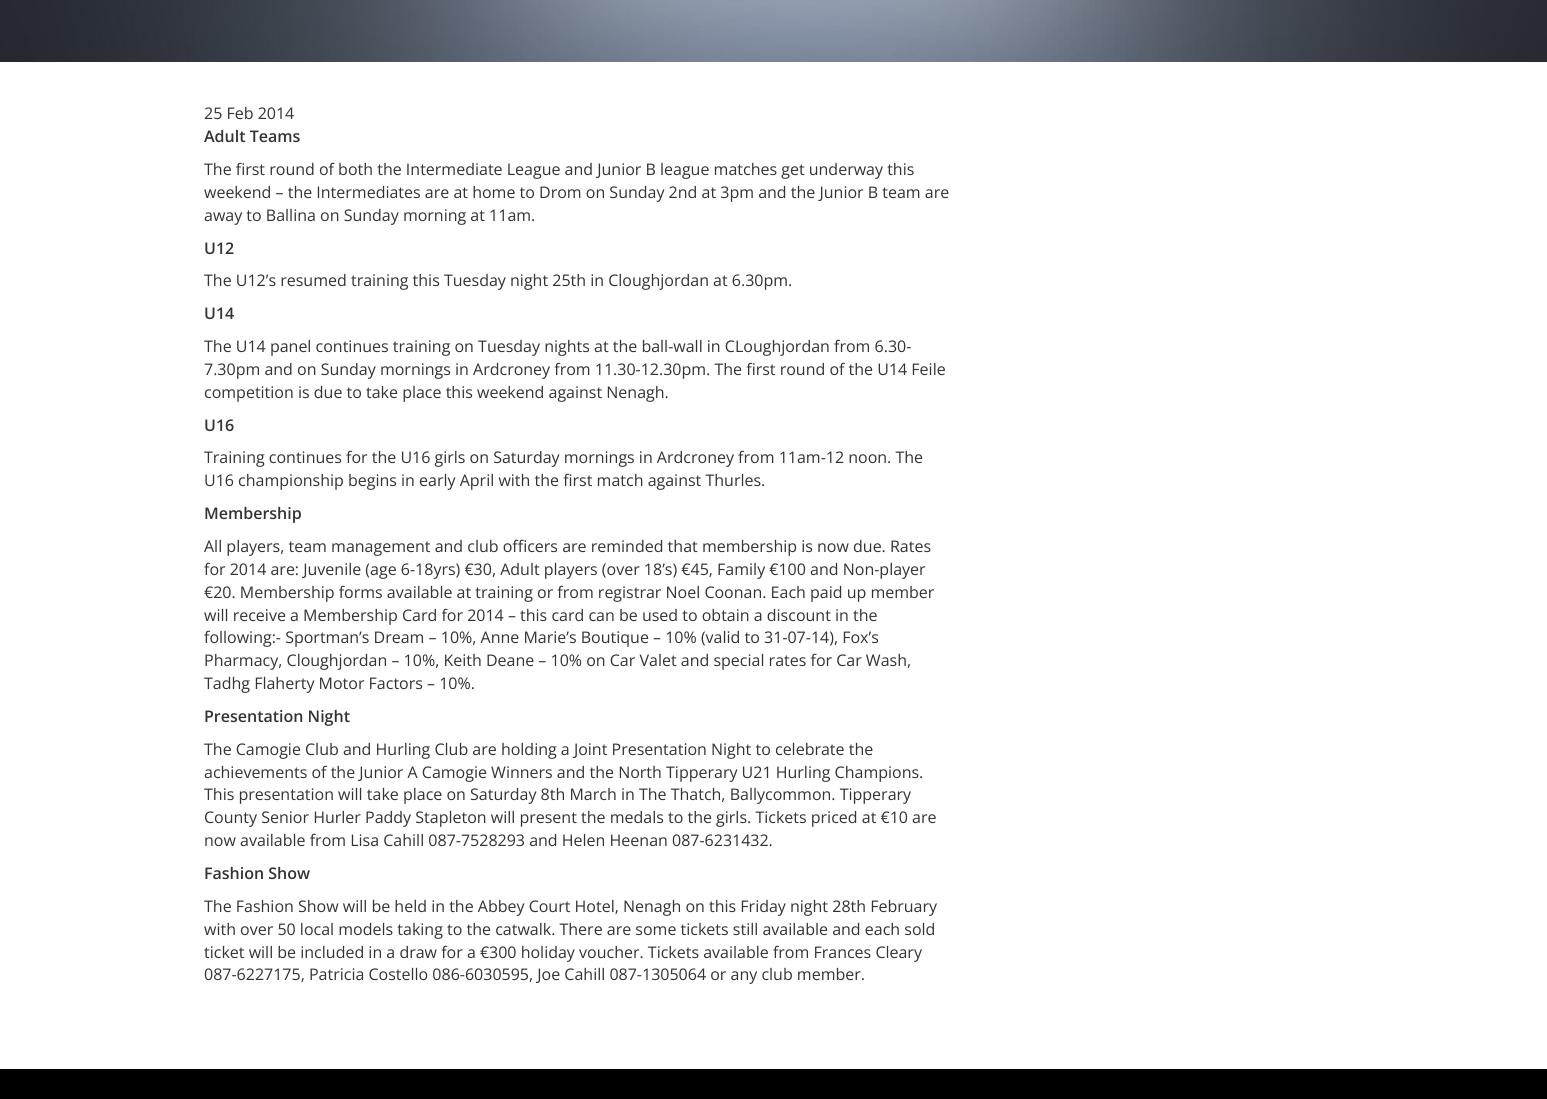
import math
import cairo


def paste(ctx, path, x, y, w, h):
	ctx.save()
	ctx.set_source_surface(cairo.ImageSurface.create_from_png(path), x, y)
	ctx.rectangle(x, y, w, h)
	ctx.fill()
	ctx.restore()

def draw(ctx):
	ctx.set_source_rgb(1, 1, 1)
	ctx.paint()
	paste(ctx, 'media/1.png', 0, 0, 1547, 62)
	ctx.select_font_face('Open Sans')
	ctx.set_font_size(16)
	ctx.set_source_rgb(0.2, 0.2, 0.2)
	ctx.move_to(204, 119)
	ctx.show_text('25 Feb 2014')
	ctx.select_font_face('Open Sans SemiBold')
	ctx.move_to(204, 142)
	ctx.show_text('Adult Teams')
	ctx.select_font_face('Open Sans')
	for x, y, s in [
		(204, 175, 'The first round of both the Intermediate League and Junior B league matches get underway this'),
		(204, 198, 'weekend – the Intermediates are at home to Drom on Sunday 2nd at 3pm and the Junior B team are'),
		(204, 221, 'away to Ballina on Sunday morning at 11am.'),
	]:
		ctx.move_to(x, y)
		ctx.show_text(s)
	ctx.select_font_face('Open Sans SemiBold')
	ctx.move_to(204, 254)
	ctx.show_text('U12')
	ctx.select_font_face('Open Sans')
	ctx.move_to(204, 286)
	ctx.show_text('The U12’s resumed training this Tuesday night 25th in Cloughjordan at 6.30pm.')
	ctx.select_font_face('Open Sans SemiBold')
	ctx.move_to(204, 319)
	ctx.show_text('U14')
	ctx.select_font_face('Open Sans')
	for x, y, s in [
		(204, 352, 'The U14 panel continues training on Tuesday nights at the ball-wall in CLoughjordan from 6.30-'),
		(204, 375, '7.30pm and on Sunday mornings in Ardcroney from 11.30-12.30pm. The first round of the U14 Feile'),
		(204, 398, 'competition is due to take place this weekend against Nenagh.'),
	]:
		ctx.move_to(x, y)
		ctx.show_text(s)
	ctx.select_font_face('Open Sans SemiBold')
	ctx.move_to(204, 431)
	ctx.show_text('U16')
	ctx.select_font_face('Open Sans')
	ctx.move_to(204, 463)
	ctx.show_text('Training continues for the U16 girls on Saturday mornings in Ardcroney from 11am-12 noon. The')
	ctx.move_to(204, 486)
	ctx.show_text('U16 championship begins in early April with the first match against Thurles.')
	ctx.select_font_face('Open Sans SemiBold')
	ctx.move_to(204, 519)
	ctx.show_text('Membership')
	ctx.select_font_face('Open Sans')
	for x, y, s in [
		(204, 552, 'All players, team management and club officers are reminded that membership is now due. Rates'),
		(204, 575, 'for 2014 are: Juvenile (age 6-18yrs) €30, Adult players (over 18’s) €45, Family €100 and Non-player'),
		(204, 598, '€20. Membership forms available at training or from registrar Noel Coonan. Each paid up member'),
		(204, 621, 'will receive a Membership Card for 2014 – this card can be used to obtain a discount in the'),
		(204, 643, 'following:- Sportman’s Dream – 10%, Anne Marie’s Boutique – 10% (valid to 31-07-14), Fox’s'),
		(204, 666, 'Pharmacy, Cloughjordan – 10%, Keith Deane – 10% on Car Valet and special rates for Car Wash,'),
		(204, 689, 'Tadhg Flaherty Motor Factors – 10%.'),
	]:
		ctx.move_to(x, y)
		ctx.show_text(s)
	ctx.select_font_face('Open Sans SemiBold')
	ctx.move_to(204, 722)
	ctx.show_text('Presentation Night')
	ctx.select_font_face('Open Sans')
	for x, y, s in [
		(204, 755, 'The Camogie Club and Hurling Club are holding a Joint Presentation Night to celebrate the'),
		(204, 778, 'achievements of the Junior A Camogie Winners and the North Tipperary U21 Hurling Champions.'),
		(204, 800, 'This presentation will take place on Saturday 8th March in The Thatch, Ballycommon. Tipperary'),
		(204, 823, 'County Senior Hurler Paddy Stapleton will present the medals to the girls. Tickets priced at €10 are'),
		(204, 846, 'now available from Lisa Cahill 087-7528293 and Helen Heenan 087-6231432.'),
	]:
		ctx.move_to(x, y)
		ctx.show_text(s)
	ctx.select_font_face('Open Sans SemiBold')
	ctx.move_to(204, 879)
	ctx.show_text('Fashion Show')
	ctx.select_font_face('Open Sans')
	for x, y, s in [
		(204, 912, 'The Fashion Show will be held in the Abbey Court Hotel, Nenagh on this Friday night 28th February'),
		(204, 935, 'with over 50 local models taking to the catwalk. There are some tickets still available and each sold'),
		(204, 958, 'ticket will be included in a draw for a €300 holiday voucher. Tickets available from Frances Cleary'),
		(204, 980, '087-6227175, Patricia Costello 086-6030595, Joe Cahill 087-1305064 or any club member.'),
	]:
		ctx.move_to(x, y)
		ctx.show_text(s)
	ctx.set_source_rgb(0, 0, 0)
	ctx.rectangle(0, 1069, 1547, 30)
	ctx.fill()


surface = cairo.ImageSurface(cairo.FORMAT_RGB24, 1547, 1099)
ctx = cairo.Context(surface)
options = cairo.FontOptions()
options.set_hint_metrics(cairo.HINT_METRICS_OFF)
options.set_hint_style(cairo.HINT_STYLE_NONE)
ctx.set_font_options(options)
ctx.set_miter_limit(4)
draw(ctx)
surface.write_to_png('image.png')
